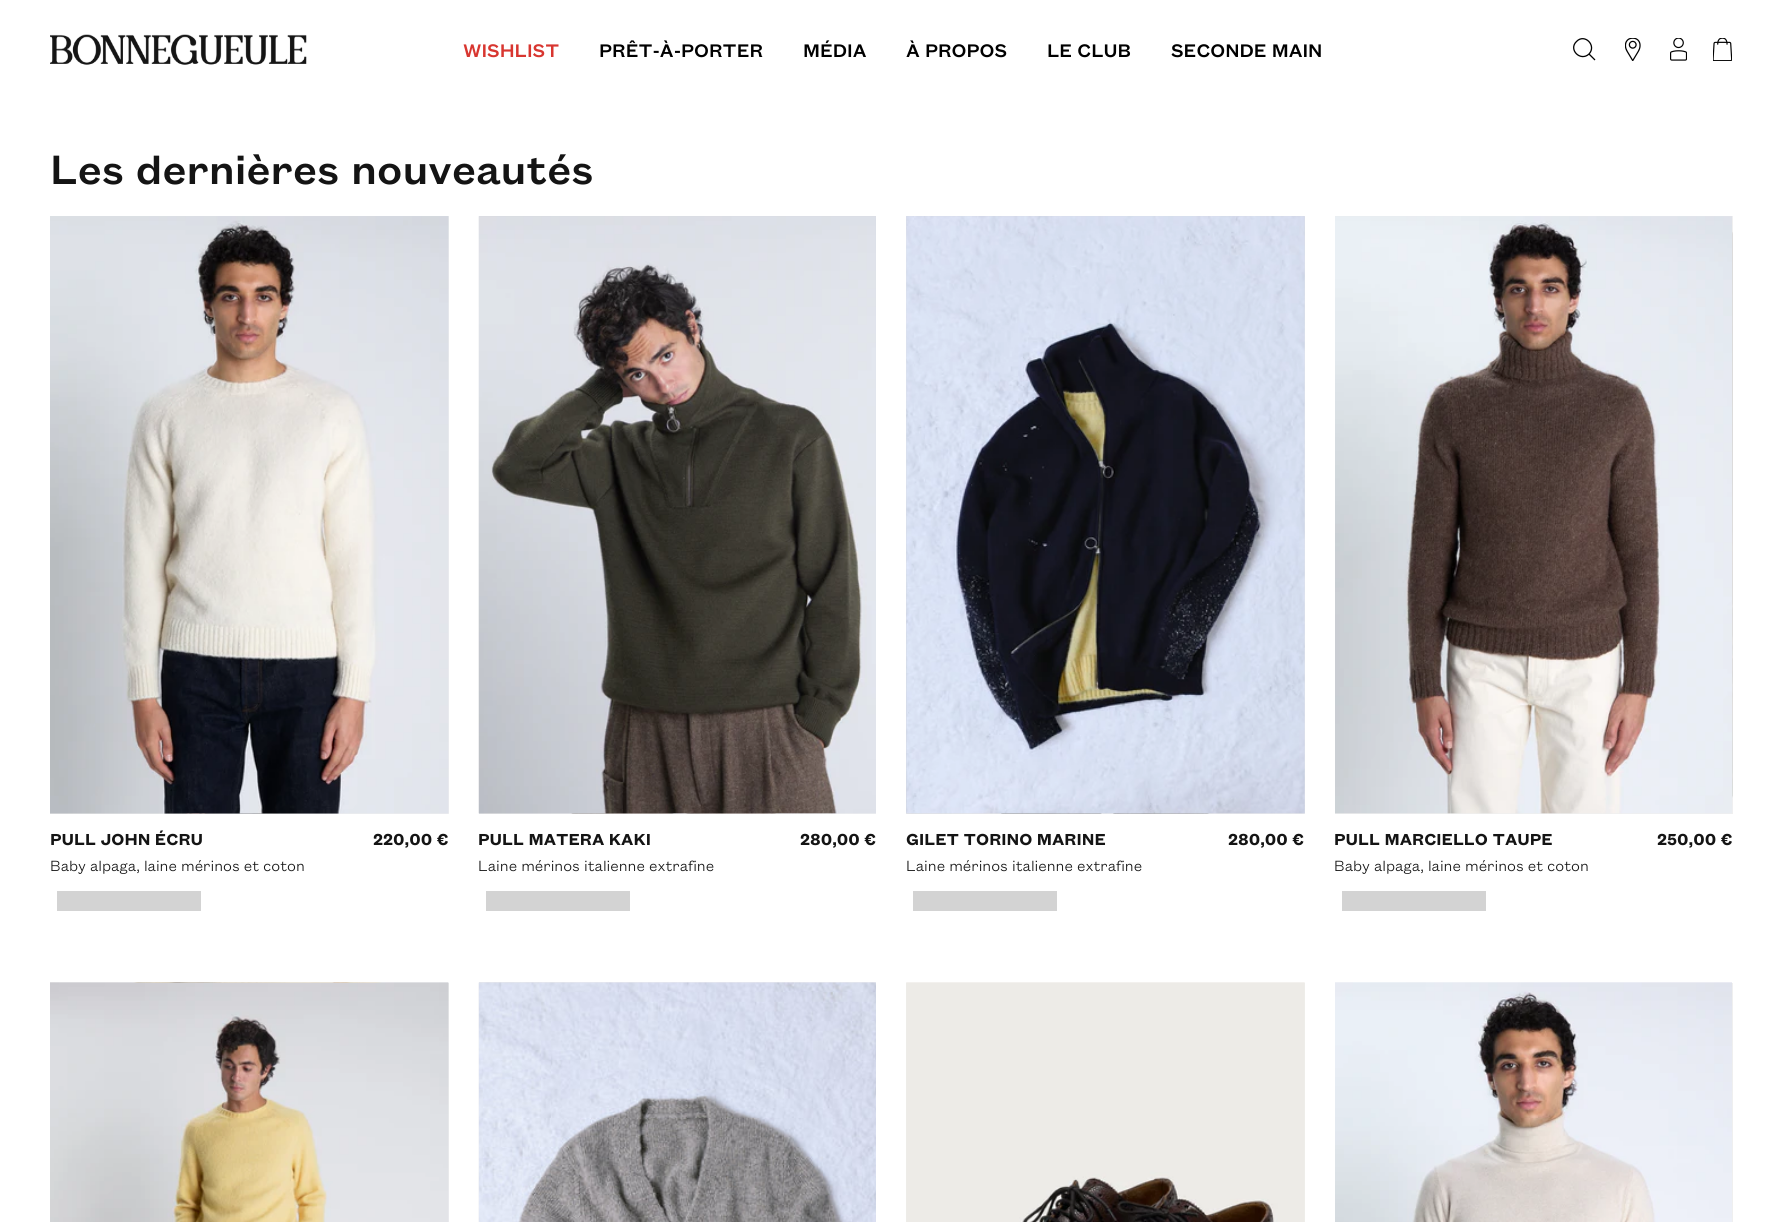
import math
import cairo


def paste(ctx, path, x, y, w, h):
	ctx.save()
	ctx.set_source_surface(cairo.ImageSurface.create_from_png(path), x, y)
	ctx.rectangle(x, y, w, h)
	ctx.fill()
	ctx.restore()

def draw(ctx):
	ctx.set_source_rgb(1, 1, 1)
	ctx.paint()
	paste(ctx, 'media/1.png', 50, 34, 257, 31)
	ctx.select_font_face('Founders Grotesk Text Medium')
	ctx.set_font_size(20)
	ctx.set_source_rgb(0.847, 0.212, 0.188)
	ctx.move_to(463, 57)
	ctx.show_text('WISHLIST')
	ctx.set_source_rgb(0, 0, 0)
	for x, y, s in [
		(599, 57, 'PRÊT-À-PORTER'),
		(803, 57, 'MÉDIA'),
		(906, 57, 'À PROPOS'),
		(1047, 57, 'LE CLUB'),
		(1171, 57, 'SECONDE MAIN'),
	]:
		ctx.move_to(x, y)
		ctx.show_text(s)
	ctx.new_path()
	ctx.move_to(1589, 54)
	ctx.curve_to(1597, 45.5, 1584.5, 33, 1576.5, 41.5)
	ctx.curve_to(1568, 49.5, 1580.5, 62, 1589, 54)
	ctx.close_path()
	ctx.move_to(1589, 54)
	ctx.line_to(1595, 60)
	ctx.set_line_width(1.3)
	ctx.stroke()
	paste(ctx, 'media/2.png', 1625, 38, 16, 23)
	paste(ctx, 'media/3.png', 1670, 38, 17, 23)
	paste(ctx, 'media/4.png', 1713, 38, 19, 23)
	ctx.set_font_size(45)
	ctx.set_source_rgb(0.082, 0.082, 0.082)
	ctx.move_to(50, 184)
	ctx.show_text('Les dernières nouveautés')
	ctx.set_source_rgb(0.937, 0.937, 0.937)
	ctx.rectangle(50, 216, 399, 598)
	ctx.fill()
	paste(ctx, 'media/5.png', 50, 216, 399, 598)
	paste(ctx, 'media/6.png', 50, 216, 399, 598)
	ctx.select_font_face('Founders Grotesk Text SemiBold')
	ctx.set_font_size(17.5)
	ctx.set_source_rgb(0.082, 0.082, 0.082)
	ctx.move_to(50, 845)
	ctx.show_text('PULL JOHN ÉCRU')
	ctx.move_to(373, 845)
	ctx.show_text('220,00 €')
	ctx.select_font_face('Founders Grotesk Text Light')
	ctx.set_font_size(16.25)
	ctx.move_to(50, 871)
	ctx.show_text('Baby alpaga, laine mérinos et coton')
	ctx.set_source_rgb(0.827, 0.827, 0.827)
	ctx.rectangle(57, 891, 144, 20)
	ctx.fill()
	ctx.set_source_rgb(0.937, 0.937, 0.937)
	ctx.rectangle(479, 216, 397, 598)
	ctx.fill()
	paste(ctx, 'media/7.png', 478, 216, 398, 598)
	paste(ctx, 'media/8.png', 478, 216, 398, 598)
	ctx.select_font_face('Founders Grotesk Text SemiBold')
	ctx.set_font_size(17.5)
	ctx.set_source_rgb(0.082, 0.082, 0.082)
	ctx.move_to(478, 845)
	ctx.show_text('PULL MATERA KAKI')
	ctx.move_to(800, 845)
	ctx.show_text('280,00 €')
	ctx.select_font_face('Founders Grotesk Text Light')
	ctx.set_font_size(16.25)
	ctx.move_to(478, 871)
	ctx.show_text('Laine mérinos italienne extrafine')
	ctx.set_source_rgb(0.827, 0.827, 0.827)
	ctx.rectangle(486, 891, 144, 20)
	ctx.fill()
	ctx.set_source_rgb(0.937, 0.937, 0.937)
	ctx.rectangle(906, 216, 399, 598)
	ctx.fill()
	paste(ctx, 'media/9.png', 906, 216, 399, 598)
	paste(ctx, 'media/10.png', 906, 216, 399, 598)
	ctx.select_font_face('Founders Grotesk Text SemiBold')
	ctx.set_font_size(17.5)
	ctx.set_source_rgb(0.082, 0.082, 0.082)
	ctx.move_to(906, 845)
	ctx.show_text('GILET TORINO MARINE')
	ctx.move_to(1228, 845)
	ctx.show_text('280,00 €')
	ctx.select_font_face('Founders Grotesk Text Light')
	ctx.set_font_size(16.25)
	ctx.move_to(906, 871)
	ctx.show_text('Laine mérinos italienne extrafine')
	ctx.set_source_rgb(0.827, 0.827, 0.827)
	ctx.rectangle(913, 891, 144, 20)
	ctx.fill()
	ctx.set_source_rgb(0.937, 0.937, 0.937)
	ctx.rectangle(1335, 216, 398, 598)
	ctx.fill()
	paste(ctx, 'media/11.png', 1335, 216, 398, 596)
	paste(ctx, 'media/12.png', 1335, 216, 397, 598)
	ctx.select_font_face('Founders Grotesk Text SemiBold')
	ctx.set_font_size(17.5)
	ctx.set_source_rgb(0.082, 0.082, 0.082)
	ctx.move_to(1334, 845)
	ctx.show_text('PULL MARCIELLO TAUPE')
	ctx.move_to(1657, 845)
	ctx.show_text('250,00 €')
	ctx.select_font_face('Founders Grotesk Text Light')
	ctx.set_font_size(16.25)
	ctx.move_to(1334, 871)
	ctx.show_text('Baby alpaga, laine mérinos et coton')
	ctx.set_source_rgb(0.827, 0.827, 0.827)
	ctx.rectangle(1342, 891, 144, 20)
	ctx.fill()
	ctx.set_source_rgb(0.937, 0.937, 0.937)
	ctx.rectangle(448, 983, 1, 239)
	ctx.fill()
	paste(ctx, 'media/13.png', 50, 982, 399, 240)
	paste(ctx, 'media/14.png', 50, 982, 399, 240)
	paste(ctx, 'media/15.png', 478, 982, 398, 240)
	paste(ctx, 'media/16.png', 478, 982, 398, 240)
	paste(ctx, 'media/17.png', 906, 982, 399, 240)
	paste(ctx, 'media/18.png', 906, 982, 399, 240)
	ctx.rectangle(1732, 983, 1, 239)
	ctx.fill()
	paste(ctx, 'media/19.png', 1335, 982, 397, 1)
	paste(ctx, 'media/20.png', 1335, 982, 397, 240)


surface = cairo.ImageSurface(cairo.FORMAT_RGB24, 1782, 1222)
ctx = cairo.Context(surface)
options = cairo.FontOptions()
options.set_hint_metrics(cairo.HINT_METRICS_OFF)
options.set_hint_style(cairo.HINT_STYLE_NONE)
ctx.set_font_options(options)
ctx.set_miter_limit(4)
draw(ctx)
surface.write_to_png('image.png')
